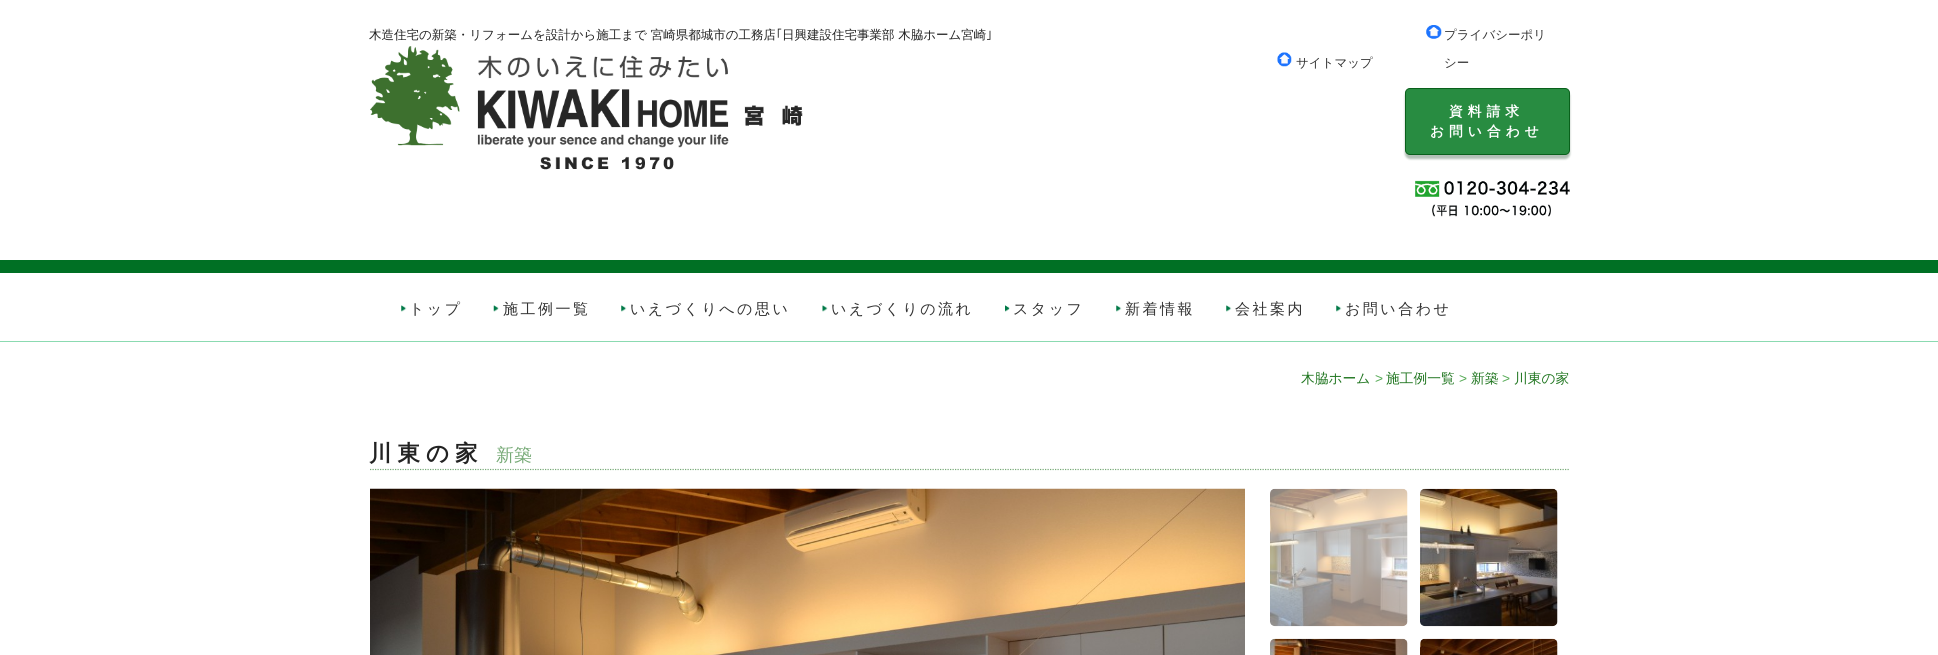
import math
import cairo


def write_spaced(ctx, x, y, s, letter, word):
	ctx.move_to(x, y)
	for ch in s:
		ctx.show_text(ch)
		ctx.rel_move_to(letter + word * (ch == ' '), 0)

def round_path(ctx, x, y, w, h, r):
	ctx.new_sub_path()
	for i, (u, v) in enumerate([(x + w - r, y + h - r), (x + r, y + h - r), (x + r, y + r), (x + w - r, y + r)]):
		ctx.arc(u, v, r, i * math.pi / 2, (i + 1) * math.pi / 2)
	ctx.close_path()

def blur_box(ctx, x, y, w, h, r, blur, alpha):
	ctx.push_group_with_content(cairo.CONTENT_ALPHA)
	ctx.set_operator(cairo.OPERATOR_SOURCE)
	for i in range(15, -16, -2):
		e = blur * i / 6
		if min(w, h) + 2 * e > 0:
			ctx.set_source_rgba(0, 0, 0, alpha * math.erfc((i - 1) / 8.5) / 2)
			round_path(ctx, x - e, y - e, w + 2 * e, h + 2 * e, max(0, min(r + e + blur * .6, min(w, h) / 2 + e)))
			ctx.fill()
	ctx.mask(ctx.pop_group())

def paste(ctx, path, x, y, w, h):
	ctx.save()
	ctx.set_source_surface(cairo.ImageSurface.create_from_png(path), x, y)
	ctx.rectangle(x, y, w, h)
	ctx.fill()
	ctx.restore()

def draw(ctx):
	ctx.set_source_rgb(1, 1, 1)
	ctx.paint()
	ctx.select_font_face('WenQuanYi Zen Hei Medium')
	ctx.set_font_size(12.5)
	ctx.set_source_rgb(0.133, 0.133, 0.133)
	ctx.move_to(369, 39)
	ctx.show_text('木造住宅の新築・リフォームを設計から施工まで 宮崎県都城市の工務店')
	ctx.select_font_face('IPAPGothic')
	ctx.move_to(776, 39)
	ctx.show_text('｢')
	ctx.select_font_face('WenQuanYi Zen Hei Medium')
	ctx.move_to(782, 39)
	ctx.show_text('日興建設住宅事業部 木脇ホーム宮崎')
	ctx.select_font_face('IPAPGothic')
	ctx.move_to(986, 39)
	ctx.show_text('｣')
	paste(ctx, 'media/1.png', 370, 46, 433, 124)
	paste(ctx, 'media/2.png', 1277, 52, 15, 15)
	ctx.select_font_face('WenQuanYi Zen Hei Medium')
	ctx.set_source_rgb(0.2, 0.2, 0.2)
	ctx.move_to(1296, 67)
	ctx.show_text('サイトマップ')
	paste(ctx, 'media/3.png', 1426, 25, 16, 14)
	ctx.move_to(1444, 39)
	ctx.show_text('プライバシーポリ')
	ctx.move_to(1444, 67)
	ctx.show_text('シー')
	ctx.set_source_rgb(0, 0.176, 0.047)
	blur_box(ctx, 1405, 91, 165, 68, 5, 1, 0.3)
	ctx.set_source_rgb(0.157, 0.549, 0.255)
	round_path(ctx, 1405.5, 88.5, 164, 66, 4.5)
	ctx.fill_preserve()
	ctx.set_source_rgb(0.039, 0.376, 0.106)
	ctx.set_line_width(1)
	ctx.stroke()
	ctx.select_font_face('WenQuanYi Zen Hei', cairo.FONT_SLANT_NORMAL, cairo.FONT_WEIGHT_BOLD)
	ctx.set_font_size(13.75)
	ctx.set_source_rgb(1, 1, 1)
	write_spaced(ctx, 1449, 116, '資料請求', 5, 0)
	write_spaced(ctx, 1430, 136, 'お問い合わせ', 5, 0)
	paste(ctx, 'media/4.png', 1415, 180, 155, 37)
	ctx.set_source_rgb(0, 0.439, 0.141)
	ctx.rectangle(0, 260, 1938, 13)
	ctx.fill()
	ctx.set_source_rgb(0.545, 0.855, 0.694)
	ctx.rectangle(0, 341, 1938, 1)
	ctx.fill()
	paste(ctx, 'media/5.png', 401, 305, 6, 7)
	ctx.select_font_face('WenQuanYi Zen Hei Medium')
	ctx.set_font_size(15)
	ctx.set_source_rgb(0.2, 0.2, 0.2)
	write_spaced(ctx, 409, 314, 'トップ', 2.5, 0)
	paste(ctx, 'media/6.png', 493, 305, 6, 7)
	write_spaced(ctx, 503, 314, '施工例一覧', 2.5, 0)
	paste(ctx, 'media/5.png', 621, 305, 6, 7)
	write_spaced(ctx, 630, 314, 'いえづくりへの思い', 2.5, 0)
	paste(ctx, 'media/7.png', 822, 305, 6, 7)
	write_spaced(ctx, 831, 314, 'いえづくりの流れ', 2.5, 0)
	paste(ctx, 'media/8.png', 1005, 305, 5, 7)
	write_spaced(ctx, 1013, 314, 'スタッフ', 2.5, 0)
	paste(ctx, 'media/5.png', 1116, 305, 6, 7)
	write_spaced(ctx, 1125, 314, '新着情報', 2.5, 0)
	paste(ctx, 'media/5.png', 1226, 305, 6, 7)
	write_spaced(ctx, 1235, 314, '会社案内', 2.5, 0)
	paste(ctx, 'media/5.png', 1336, 305, 6, 7)
	write_spaced(ctx, 1345, 314, 'お問い合わせ', 2.5, 0)
	ctx.set_font_size(13.75)
	ctx.set_source_rgb(0.133, 0.467, 0.133)
	ctx.move_to(1301, 383)
	ctx.show_text('木脇ホーム')
	ctx.select_font_face('Liberation Sans')
	ctx.set_source_rgb(0.333, 0.667, 0.333)
	ctx.move_to(1375, 383)
	ctx.show_text('>')
	ctx.select_font_face('WenQuanYi Zen Hei Medium')
	ctx.set_source_rgb(0.133, 0.467, 0.133)
	ctx.move_to(1386, 383)
	ctx.show_text('施工例一覧')
	ctx.select_font_face('Liberation Sans')
	ctx.set_source_rgb(0.333, 0.667, 0.333)
	ctx.move_to(1459, 383)
	ctx.show_text('>')
	ctx.select_font_face('WenQuanYi Zen Hei Medium')
	ctx.set_source_rgb(0.133, 0.467, 0.133)
	ctx.move_to(1471, 383)
	ctx.show_text('新築')
	ctx.select_font_face('Liberation Sans')
	ctx.set_source_rgb(0.333, 0.667, 0.333)
	ctx.move_to(1502, 383)
	ctx.show_text('>')
	ctx.select_font_face('WenQuanYi Zen Hei Medium')
	ctx.set_source_rgb(0.133, 0.467, 0.133)
	ctx.move_to(1514, 383)
	ctx.show_text('川東の家')
	ctx.new_path()
	ctx.move_to(370, 469.5)
	ctx.line_to(1570, 469.5)
	ctx.set_source_rgb(0.467, 0.667, 0.467)
	ctx.set_line_width(1.2)
	ctx.set_dash([1.25, 1.25])
	ctx.stroke()
	ctx.select_font_face('WenQuanYi Zen Hei', cairo.FONT_SLANT_NORMAL, cairo.FONT_WEIGHT_BOLD)
	ctx.set_font_size(22.5)
	ctx.set_source_rgb(0.133, 0.133, 0.133)
	write_spaced(ctx, 369, 461, '川東の家', 6, 0)
	ctx.select_font_face('WenQuanYi Zen Hei Medium')
	ctx.set_font_size(18)
	ctx.set_source_rgb(0.467, 0.667, 0.467)
	ctx.move_to(496, 461)
	ctx.show_text('新築')
	paste(ctx, 'media/9.png', 370, 488, 875, 167)
	paste(ctx, 'media/10.png', 1270, 488, 138, 139)
	paste(ctx, 'media/11.png', 1420, 488, 138, 139)
	paste(ctx, 'media/12.png', 1270, 638, 138, 17)
	paste(ctx, 'media/13.png', 1420, 638, 138, 17)


surface = cairo.ImageSurface(cairo.FORMAT_RGB24, 1938, 655)
ctx = cairo.Context(surface)
options = cairo.FontOptions()
options.set_hint_metrics(cairo.HINT_METRICS_OFF)
options.set_hint_style(cairo.HINT_STYLE_NONE)
ctx.set_font_options(options)
ctx.set_miter_limit(4)
draw(ctx)
surface.write_to_png('image.png')
